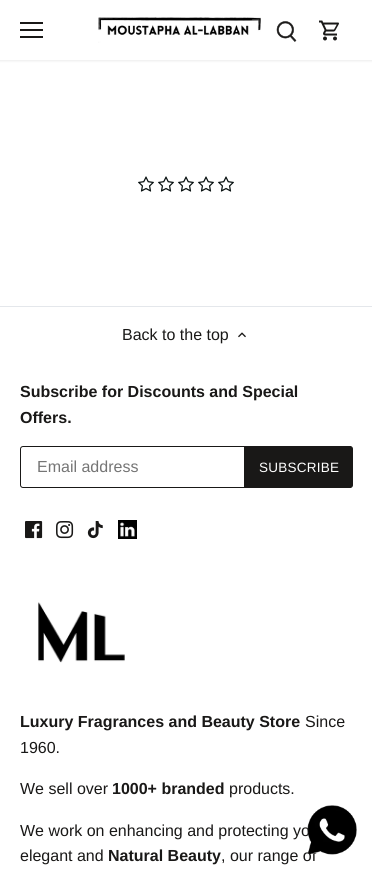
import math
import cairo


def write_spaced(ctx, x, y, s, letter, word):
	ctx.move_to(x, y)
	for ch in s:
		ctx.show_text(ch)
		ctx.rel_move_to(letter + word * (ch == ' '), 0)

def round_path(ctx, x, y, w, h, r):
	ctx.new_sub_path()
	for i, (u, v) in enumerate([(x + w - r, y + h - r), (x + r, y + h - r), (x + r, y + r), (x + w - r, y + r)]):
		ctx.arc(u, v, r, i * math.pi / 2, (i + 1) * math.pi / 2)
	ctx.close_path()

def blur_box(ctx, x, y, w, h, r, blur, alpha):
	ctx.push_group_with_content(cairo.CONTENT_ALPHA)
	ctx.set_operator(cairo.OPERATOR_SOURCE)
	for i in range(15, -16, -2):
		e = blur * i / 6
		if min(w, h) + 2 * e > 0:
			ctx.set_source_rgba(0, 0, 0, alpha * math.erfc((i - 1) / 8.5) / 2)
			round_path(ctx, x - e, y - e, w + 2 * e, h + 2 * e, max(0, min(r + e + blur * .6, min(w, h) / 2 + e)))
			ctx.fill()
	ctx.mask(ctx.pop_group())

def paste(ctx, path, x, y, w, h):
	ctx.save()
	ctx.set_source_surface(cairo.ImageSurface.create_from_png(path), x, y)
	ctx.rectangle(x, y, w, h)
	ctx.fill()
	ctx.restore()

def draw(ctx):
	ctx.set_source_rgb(1, 1, 1)
	ctx.paint()
	ctx.set_source_rgb(0, 0, 0)
	blur_box(ctx, -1, -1, 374, 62, 0, 1.5, 0.08)
	ctx.set_source_rgb(1, 1, 1)
	ctx.rectangle(0, 0, 372, 60)
	ctx.fill()
	ctx.set_source_rgb(0.098, 0.094, 0.09)
	ctx.rectangle(20, 22, 23, 2)
	ctx.rectangle(20, 29, 23, 2)
	ctx.rectangle(20, 36, 23, 2)
	ctx.fill()
	paste(ctx, 'media/1.png', 98, 17, 163, 26)
	paste(ctx, 'media/2.png', 276, 21, 21, 21)
	paste(ctx, 'media/3.png', 319, 20, 20, 21)
	paste(ctx, 'media/4.png', 138, 176, 16, 16)
	paste(ctx, 'media/4.png', 158, 176, 16, 16)
	paste(ctx, 'media/4.png', 178, 176, 16, 16)
	paste(ctx, 'media/4.png', 198, 176, 16, 16)
	paste(ctx, 'media/4.png', 218, 176, 16, 16)
	ctx.set_source_rgb(0.894, 0.906, 0.918)
	ctx.rectangle(0, 306, 372, 1)
	ctx.fill()
	ctx.select_font_face('Liberation Sans')
	ctx.set_font_size(16)
	ctx.set_source_rgb(0.098, 0.094, 0.09)
	ctx.move_to(122, 340)
	ctx.show_text('Back to the top')
	paste(ctx, 'media/5.png', 238, 332, 8, 6)
	ctx.select_font_face('Liberation Sans', cairo.FONT_SLANT_NORMAL, cairo.FONT_WEIGHT_BOLD)
	ctx.move_to(20, 397)
	ctx.show_text('Subscribe for Discounts and Special')
	ctx.move_to(20, 423)
	ctx.show_text('Offers.')
	round_path(ctx, 20.5, 446.5, 331, 41, 2.5)
	ctx.set_line_width(1)
	ctx.stroke()
	ctx.select_font_face('Liberation Sans')
	ctx.set_source_rgb(0.459, 0.459, 0.459)
	ctx.move_to(37, 472)
	ctx.show_text('Email address')
	ctx.set_source_rgb(0.098, 0.094, 0.09)
	ctx.new_path()
	ctx.move_to(244.5, 446.5)
	ctx.line_to(350, 446.5)
	ctx.curve_to(351.5, 446.5, 352.5, 447.5, 352.5, 449)
	ctx.line_to(352.5, 485)
	ctx.curve_to(352.5, 486.5, 351.5, 487.5, 350, 487.5)
	ctx.line_to(244.5, 487.5)
	ctx.close_path()
	ctx.fill_preserve()
	ctx.stroke()
	ctx.set_font_size(13.5)
	ctx.set_source_rgb(1, 1, 1)
	write_spaced(ctx, 259, 472, 'SUBSCRIBE', 0.25, 0)
	paste(ctx, 'media/6.png', 25, 521, 18, 18)
	paste(ctx, 'media/7.png', 56, 521, 18, 18)
	paste(ctx, 'media/8.png', 87, 521, 16, 18)
	paste(ctx, 'media/9.png', 118, 520, 19, 19)
	paste(ctx, 'media/10.png', 38, 602, 87, 61)
	ctx.select_font_face('Liberation Sans', cairo.FONT_SLANT_NORMAL, cairo.FONT_WEIGHT_BOLD)
	ctx.set_font_size(16)
	ctx.set_source_rgb(0.098, 0.094, 0.09)
	ctx.move_to(20, 727)
	ctx.show_text('Luxury Fragrances and Beauty Store')
	ctx.select_font_face('Liberation Sans')
	for x, y, s in [
		(305, 727, 'Since'),
		(20, 753, '1960.'),
		(20, 794, 'We sell over'),
	]:
		ctx.move_to(x, y)
		ctx.show_text(s)
	ctx.select_font_face('Liberation Sans', cairo.FONT_SLANT_NORMAL, cairo.FONT_WEIGHT_BOLD)
	ctx.move_to(112, 794)
	ctx.show_text('1000+ branded')
	ctx.select_font_face('Liberation Sans')
	for x, y, s in [
		(229, 794, 'products.'),
		(20, 836, 'We work on enhancing and protecting yo'),
		(20, 861, 'elegant and'),
	]:
		ctx.move_to(x, y)
		ctx.show_text(s)
	ctx.select_font_face('Liberation Sans', cairo.FONT_SLANT_NORMAL, cairo.FONT_WEIGHT_BOLD)
	ctx.move_to(108, 861)
	ctx.show_text('Natural Beauty')
	ctx.select_font_face('Liberation Sans')
	ctx.move_to(221, 861)
	ctx.show_text(', our range of')
	paste(ctx, 'media/11.png', 307, 805, 50, 50)


surface = cairo.ImageSurface(cairo.FORMAT_RGB24, 372, 883)
ctx = cairo.Context(surface)
options = cairo.FontOptions()
options.set_hint_metrics(cairo.HINT_METRICS_OFF)
options.set_hint_style(cairo.HINT_STYLE_NONE)
ctx.set_font_options(options)
ctx.set_miter_limit(4)
draw(ctx)
surface.write_to_png('image.png')
